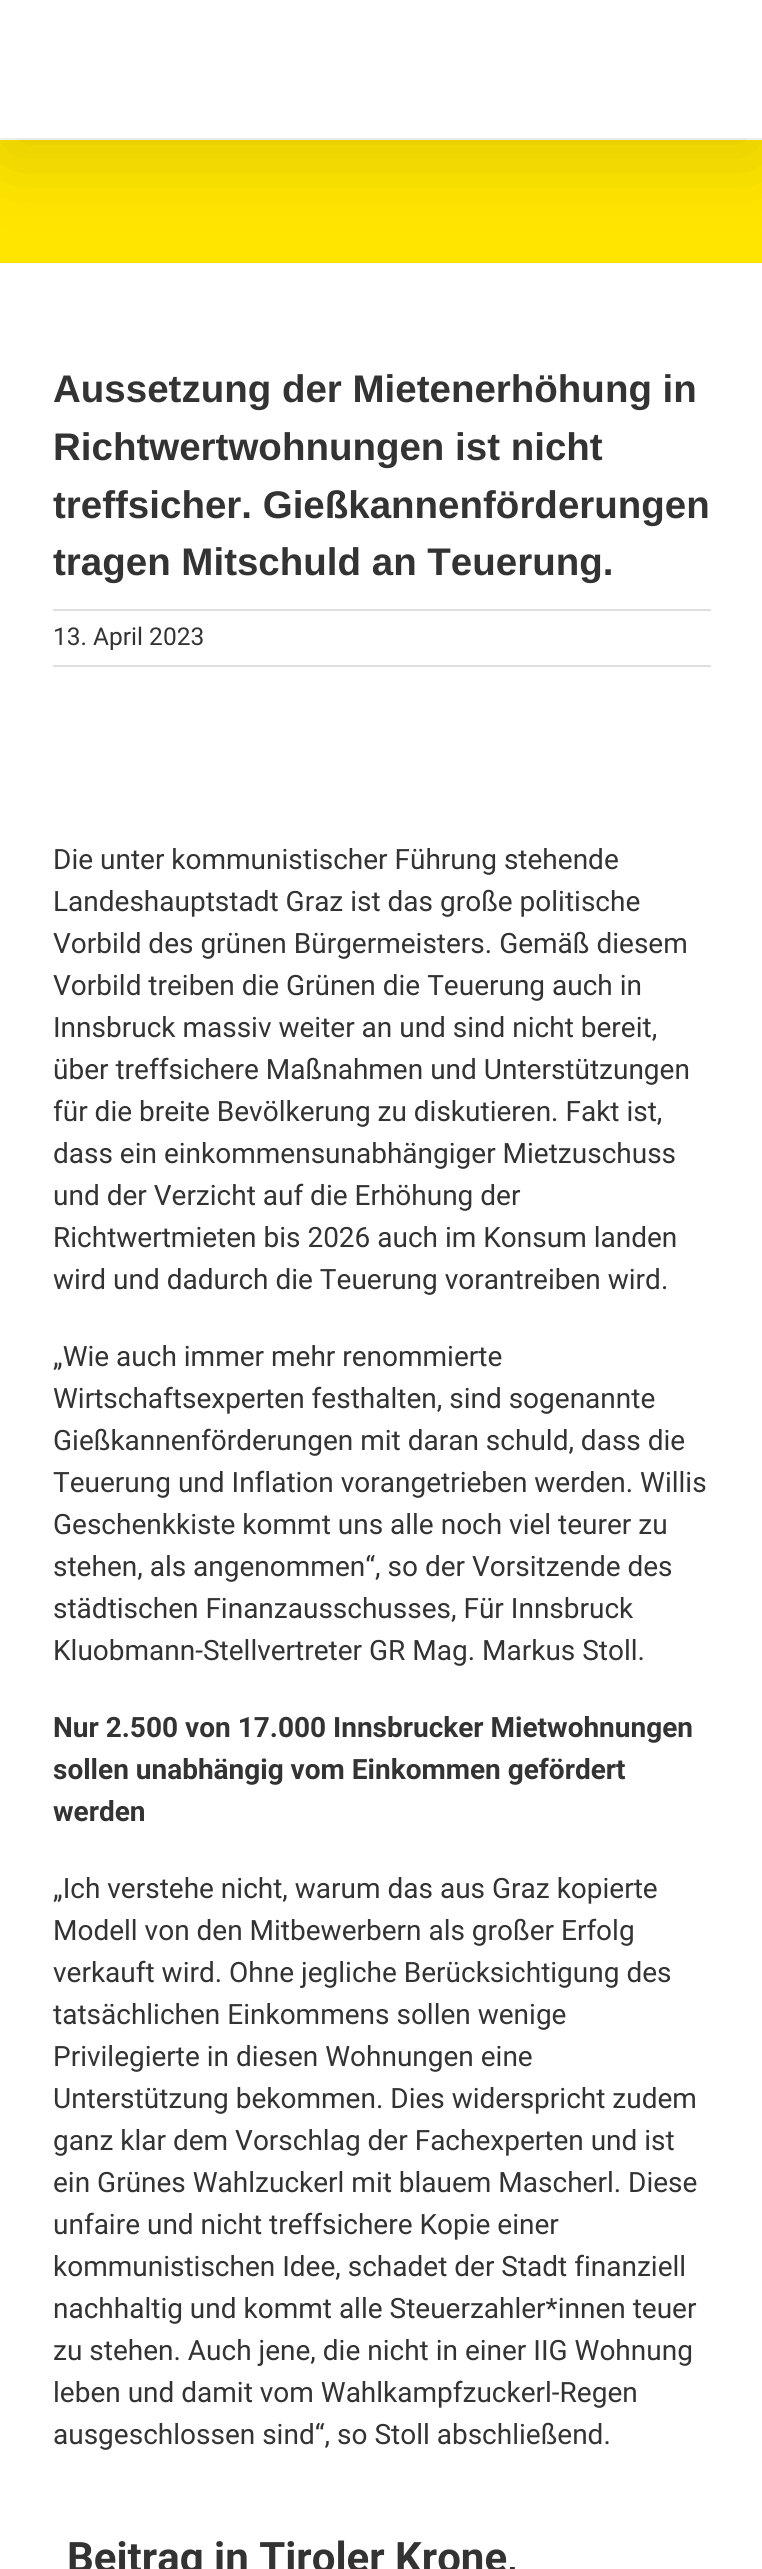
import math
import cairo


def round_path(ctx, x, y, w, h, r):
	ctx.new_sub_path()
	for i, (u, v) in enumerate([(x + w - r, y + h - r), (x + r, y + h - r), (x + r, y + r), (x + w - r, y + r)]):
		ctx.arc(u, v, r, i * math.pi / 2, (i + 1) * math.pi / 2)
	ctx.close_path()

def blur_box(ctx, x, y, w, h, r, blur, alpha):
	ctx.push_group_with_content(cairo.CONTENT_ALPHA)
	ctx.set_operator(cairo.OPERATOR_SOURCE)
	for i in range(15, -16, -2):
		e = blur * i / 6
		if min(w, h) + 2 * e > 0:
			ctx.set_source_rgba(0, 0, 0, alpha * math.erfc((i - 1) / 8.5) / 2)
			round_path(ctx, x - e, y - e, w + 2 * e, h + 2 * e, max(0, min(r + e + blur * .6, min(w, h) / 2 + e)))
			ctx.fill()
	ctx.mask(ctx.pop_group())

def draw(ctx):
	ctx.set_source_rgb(1, 0.902, 0)
	ctx.paint()
	ctx.set_source_rgb(1, 1, 1)
	ctx.rectangle(0, 138, 762, 2)
	ctx.fill()
	ctx.rectangle(0, 263, 762, 2306)
	ctx.fill()
	ctx.set_source_rgb(0, 0, 0)
	blur_box(ctx, 4, 21, 756, 131, 0, 44, 0.14)
	ctx.set_source_rgb(1, 1, 1)
	ctx.rectangle(0, 0, 762, 138)
	ctx.fill()
	ctx.select_font_face('Liberation Sans', cairo.FONT_SLANT_NORMAL, cairo.FONT_WEIGHT_BOLD)
	ctx.set_font_size(38.5)
	ctx.set_source_rgb(0.2, 0.2, 0.2)
	for x, y, s in [
		(53, 402, 'Aussetzung der Mietenerhöhung in'),
		(53, 460, 'Richtwertwohnungen ist nicht'),
		(53, 518, 'treffsicher. Gießkannenförderungen'),
		(53, 575, 'tragen Mitschuld an Teuerung.'),
	]:
		ctx.move_to(x, y)
		ctx.show_text(s)
	ctx.set_source_rgb(0.878, 0.871, 0.871)
	ctx.rectangle(53, 609, 658, 2)
	ctx.fill()
	ctx.rectangle(53, 665, 658, 2)
	ctx.fill()
	ctx.select_font_face('Roboto')
	ctx.set_font_size(24.5)
	ctx.set_source_rgb(0.2, 0.2, 0.2)
	ctx.move_to(53, 645)
	ctx.show_text('13. April 2023')
	ctx.set_font_size(28)
	for x, y, s in [
		(53, 869, 'Die unter kommunistischer Führung stehende'),
		(53, 911, 'Landeshauptstadt Graz ist das große politische'),
		(53, 953, 'Vorbild des grünen Bürgermeisters. Gemäß diesem'),
		(53, 995, 'Vorbild treiben die Grünen die Teuerung auch in'),
		(53, 1037, 'Innsbruck massiv weiter an und sind nicht bereit,'),
		(53, 1079, 'über treffsichere Maßnahmen und Unterstützungen'),
		(53, 1121, 'für die breite Bevölkerung zu diskutieren. Fakt ist,'),
		(53, 1163, 'dass ein einkommensunabhängiger Mietzuschuss'),
		(53, 1205, 'und der Verzicht auf die Erhöhung der'),
		(53, 1247, 'Richtwertmieten bis 2026 auch im Konsum landen'),
		(53, 1289, 'wird und dadurch die Teuerung vorantreiben wird.'),
		(53, 1366, '„Wie auch immer mehr renommierte'),
		(53, 1408, 'Wirtschaftsexperten festhalten, sind sogenannte'),
		(53, 1450, 'Gießkannenförderungen mit daran schuld, dass die'),
		(53, 1492, 'Teuerung und Inflation vorangetrieben werden. Willis'),
		(53, 1534, 'Geschenkkiste kommt uns alle noch viel teurer zu'),
		(53, 1576, 'stehen, als angenommen“, so der Vorsitzende des'),
		(53, 1618, 'städtischen Finanzausschusses, Für Innsbruck'),
		(53, 1660, 'Kluobmann-Stellvertreter GR Mag. Markus Stoll.'),
	]:
		ctx.move_to(x, y)
		ctx.show_text(s)
	ctx.select_font_face('Roboto', cairo.FONT_SLANT_NORMAL, cairo.FONT_WEIGHT_BOLD)
	for x, y, s in [
		(53, 1737, 'Nur 2.500 von 17.000 Innsbrucker Mietwohnungen'),
		(53, 1779, 'sollen unabhängig vom Einkommen gefördert'),
		(53, 1821, 'werden'),
	]:
		ctx.move_to(x, y)
		ctx.show_text(s)
	ctx.select_font_face('Roboto')
	for x, y, s in [
		(53, 1898, '„Ich verstehe nicht, warum das aus Graz kopierte'),
		(53, 1940, 'Modell von den Mitbewerbern als großer Erfolg'),
		(53, 1982, 'verkauft wird. Ohne jegliche Berücksichtigung des'),
		(53, 2024, 'tatsächlichen Einkommens sollen wenige'),
		(53, 2066, 'Privilegierte in diesen Wohnungen eine'),
		(53, 2108, 'Unterstützung bekommen. Dies widerspricht zudem'),
		(53, 2150, 'ganz klar dem Vorschlag der Fachexperten und ist'),
		(53, 2192, 'ein Grünes Wahlzuckerl mit blauem Mascherl. Diese'),
		(53, 2234, 'unfaire und nicht treffsichere Kopie einer'),
		(53, 2276, 'kommunistischen Idee, schadet der Stadt finanziell'),
		(53, 2318, 'nachhaltig und kommt alle Steuerzahler*innen teuer'),
		(53, 2360, 'zu stehen. Auch jene, die nicht in einer IIG Wohnung'),
		(53, 2402, 'leben und damit vom Wahlkampfzuckerl-Regen'),
		(53, 2444, 'ausgeschlossen sind“, so Stoll abschließend.'),
	]:
		ctx.move_to(x, y)
		ctx.show_text(s)
	ctx.select_font_face('Roboto', cairo.FONT_SLANT_NORMAL, cairo.FONT_WEIGHT_BOLD)
	ctx.set_font_size(42)
	ctx.move_to(67, 2572)
	ctx.show_text('Beitrag in Tiroler Krone,')


surface = cairo.ImageSurface(cairo.FORMAT_RGB24, 762, 2569)
ctx = cairo.Context(surface)
options = cairo.FontOptions()
options.set_hint_metrics(cairo.HINT_METRICS_OFF)
options.set_hint_style(cairo.HINT_STYLE_NONE)
ctx.set_font_options(options)
ctx.set_miter_limit(4)
draw(ctx)
surface.write_to_png('image.png')
